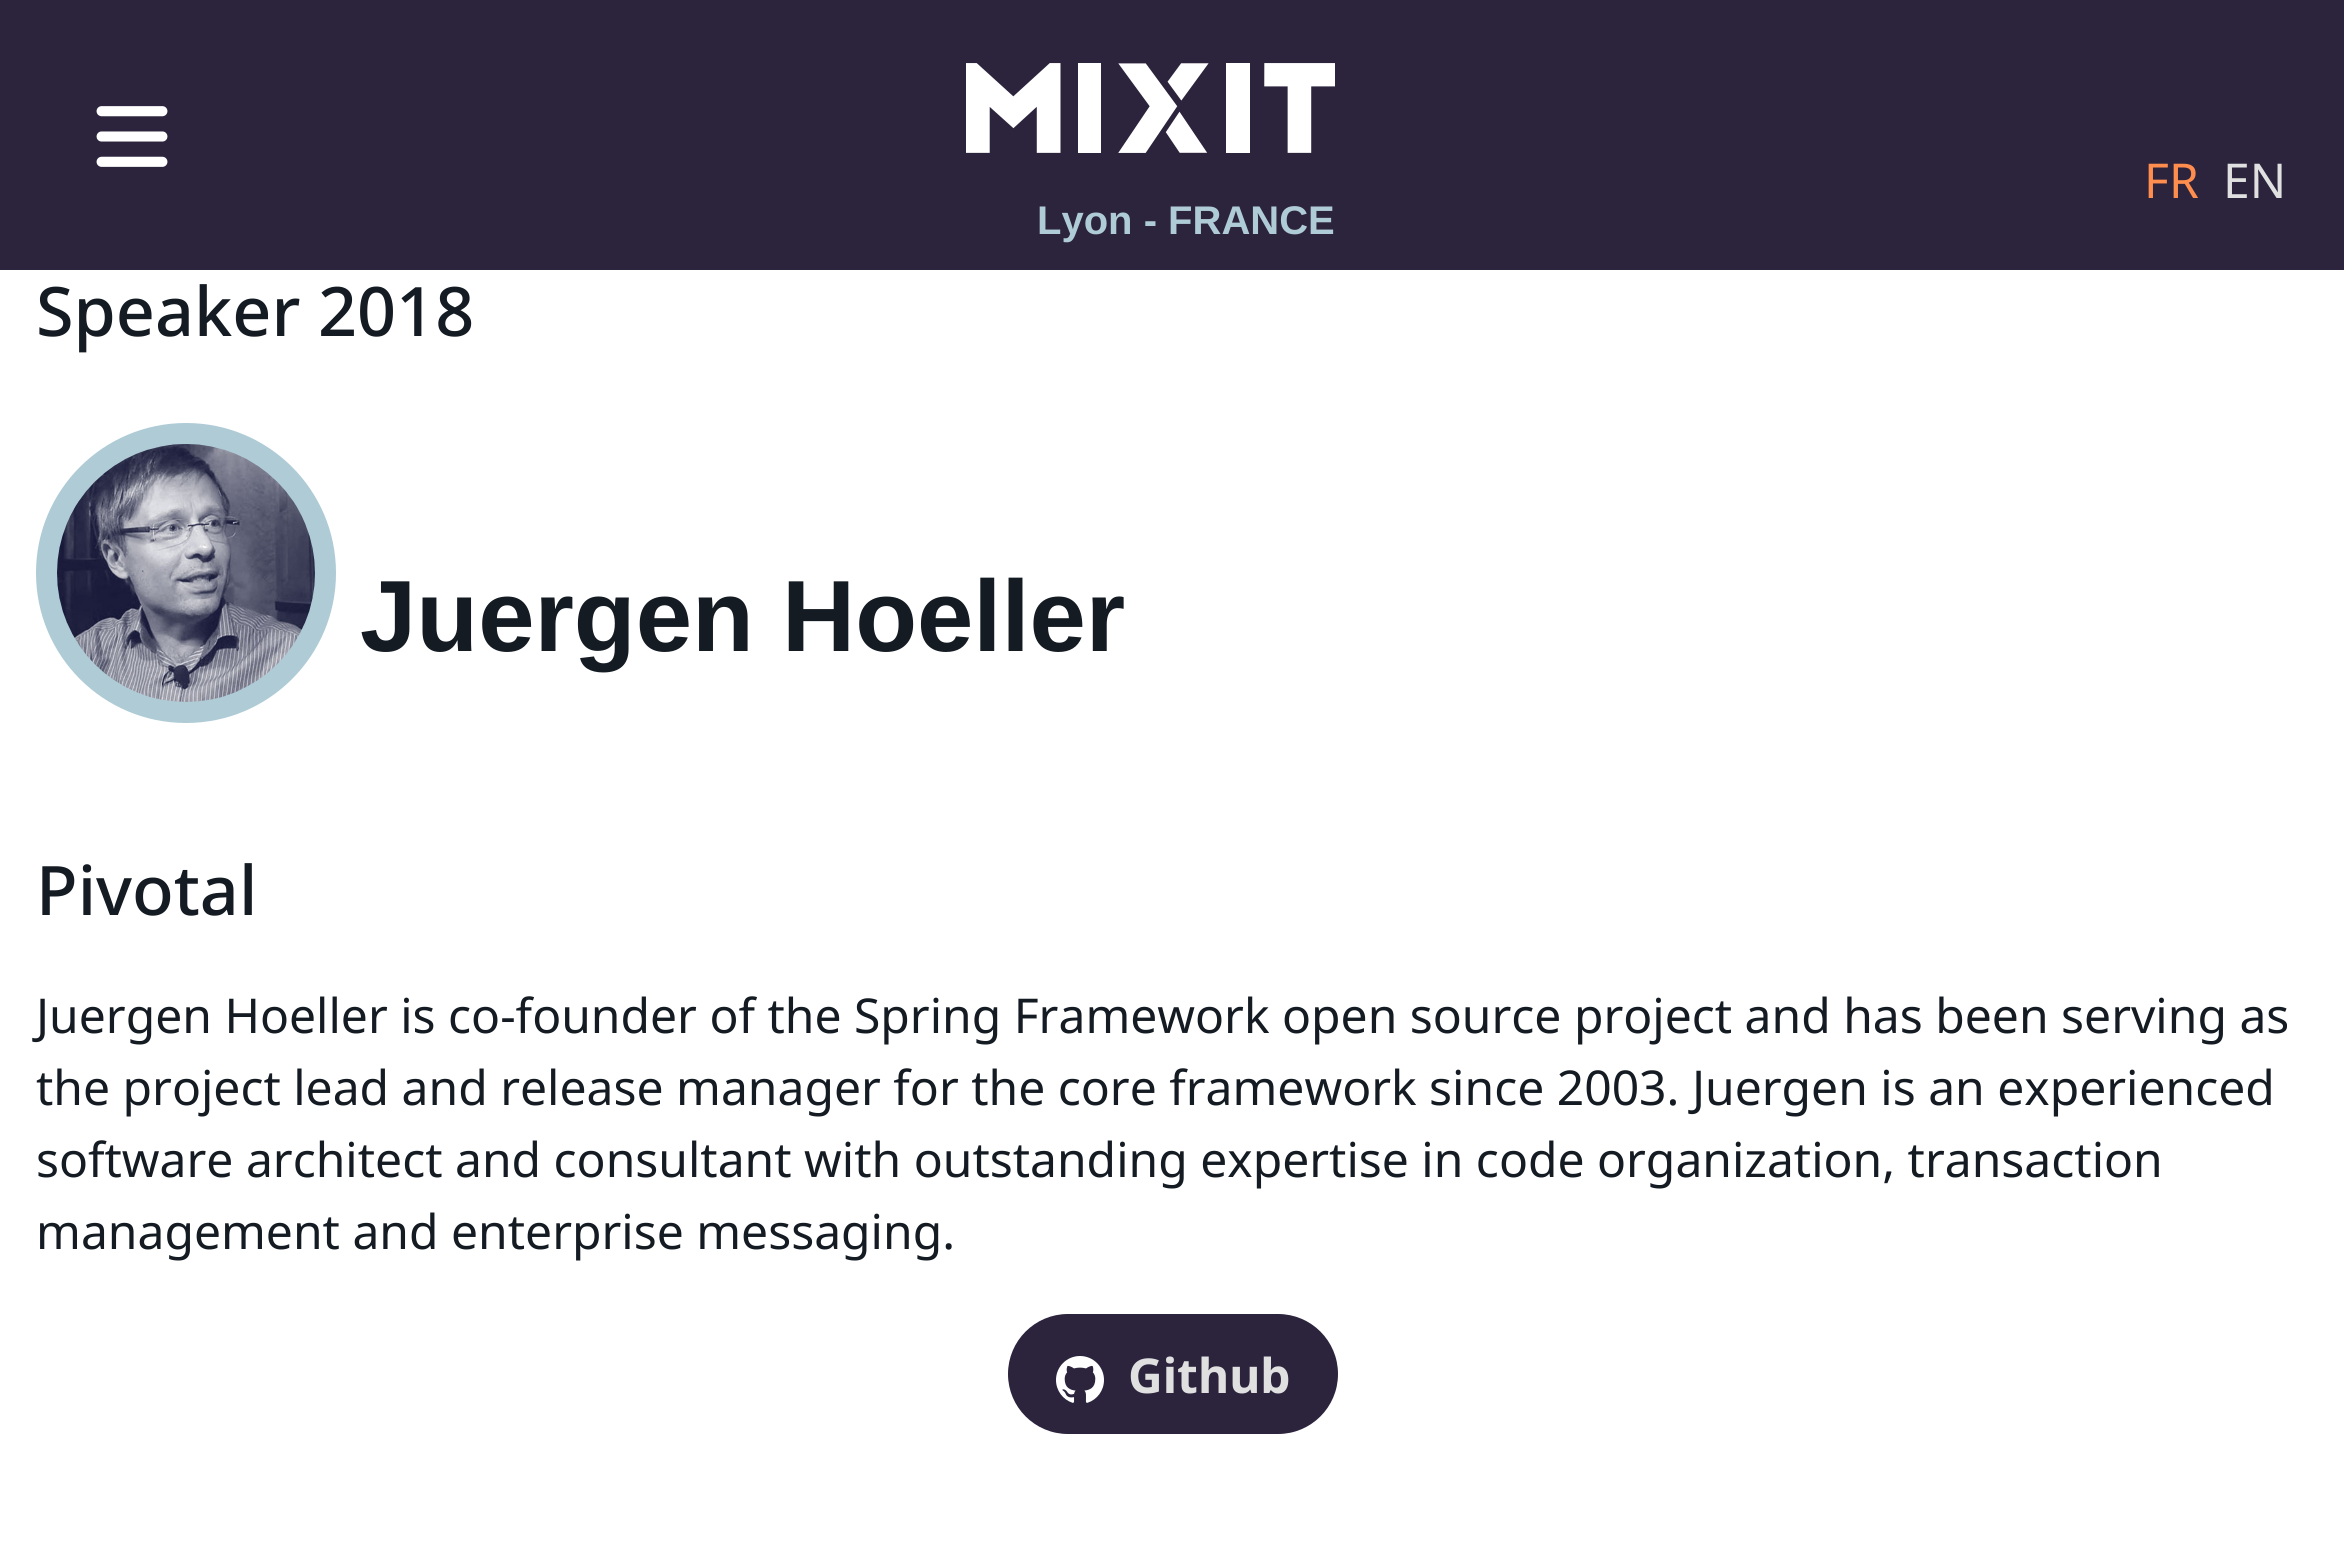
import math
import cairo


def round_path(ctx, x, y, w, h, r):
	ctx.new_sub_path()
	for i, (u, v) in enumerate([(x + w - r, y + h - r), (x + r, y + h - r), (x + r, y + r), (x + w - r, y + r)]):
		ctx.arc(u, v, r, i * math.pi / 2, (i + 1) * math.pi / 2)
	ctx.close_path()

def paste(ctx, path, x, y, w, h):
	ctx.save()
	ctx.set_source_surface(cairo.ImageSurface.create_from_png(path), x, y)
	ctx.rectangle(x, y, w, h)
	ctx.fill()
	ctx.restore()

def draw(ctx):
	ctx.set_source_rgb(1, 1, 1)
	ctx.paint()
	ctx.set_source_rgb(0.173, 0.137, 0.239)
	ctx.rectangle(0, 0, 2344, 270)
	ctx.fill()
	paste(ctx, 'media/1.png', 96, 106, 72, 61)
	ctx.select_font_face('Noto Sans')
	ctx.set_font_size(48)
	ctx.set_source_rgb(1, 0.553, 0.306)
	ctx.move_to(2144, 198)
	ctx.show_text('FR')
	ctx.set_source_rgb(0.878, 0.878, 0.878)
	ctx.move_to(2223, 198)
	ctx.show_text('EN')
	paste(ctx, 'media/2.png', 966, 63, 369, 90)
	ctx.select_font_face('Liberation Sans', cairo.FONT_SLANT_NORMAL, cairo.FONT_WEIGHT_BOLD)
	ctx.set_font_size(40)
	ctx.set_source_rgb(0.682, 0.796, 0.839)
	ctx.move_to(1037, 234)
	ctx.show_text('Lyon - FRANCE')
	ctx.select_font_face('Noto Sans Medium')
	ctx.set_font_size(68.25)
	ctx.set_source_rgb(0.082, 0.106, 0.137)
	ctx.move_to(36, 336)
	ctx.show_text('Speaker 2018')
	ctx.set_source_rgb(0.682, 0.796, 0.839)
	ctx.new_path()
	ctx.arc(186, 573, 139.5, 0, 2 * math.pi)
	ctx.fill_preserve()
	ctx.set_line_width(21)
	ctx.stroke()
	paste(ctx, 'media/3.png', 57, 444, 258, 258)
	ctx.select_font_face('Liberation Sans', cairo.FONT_SLANT_NORMAL, cairo.FONT_WEIGHT_BOLD)
	ctx.set_font_size(101.25)
	ctx.set_source_rgb(0.082, 0.106, 0.137)
	ctx.move_to(360, 651)
	ctx.show_text('Juergen Hoeller')
	ctx.select_font_face('Noto Sans Medium')
	ctx.set_font_size(68.25)
	ctx.move_to(36, 915)
	ctx.show_text('Pivotal')
	ctx.select_font_face('Noto Sans')
	ctx.set_font_size(48)
	for x, y, s in [
		(36, 1033, 'Juergen Hoeller is co-founder of the Spring Framework open source project and has been serving as'),
		(36, 1105, 'the project lead and release manager for the core framework since 2003. Juergen is an experienced'),
		(36, 1177, 'software architect and consultant with outstanding expertise in code organization, transaction'),
		(36, 1249, 'management and enterprise messaging.'),
	]:
		ctx.move_to(x, y)
		ctx.show_text(s)
	ctx.set_source_rgb(0.173, 0.137, 0.239)
	round_path(ctx, 1008, 1314, 330, 120, 60)
	ctx.fill()
	paste(ctx, 'media/4.png', 1056, 1356, 48, 47)
	ctx.select_font_face('Noto Sans', cairo.FONT_SLANT_NORMAL, cairo.FONT_WEIGHT_BOLD)
	ctx.set_source_rgb(0.878, 0.878, 0.878)
	ctx.move_to(1128, 1393)
	ctx.show_text('Github')


surface = cairo.ImageSurface(cairo.FORMAT_RGB24, 2344, 1542)
ctx = cairo.Context(surface)
options = cairo.FontOptions()
options.set_hint_metrics(cairo.HINT_METRICS_OFF)
options.set_hint_style(cairo.HINT_STYLE_NONE)
ctx.set_font_options(options)
ctx.set_miter_limit(4)
draw(ctx)
surface.write_to_png('image.png')
